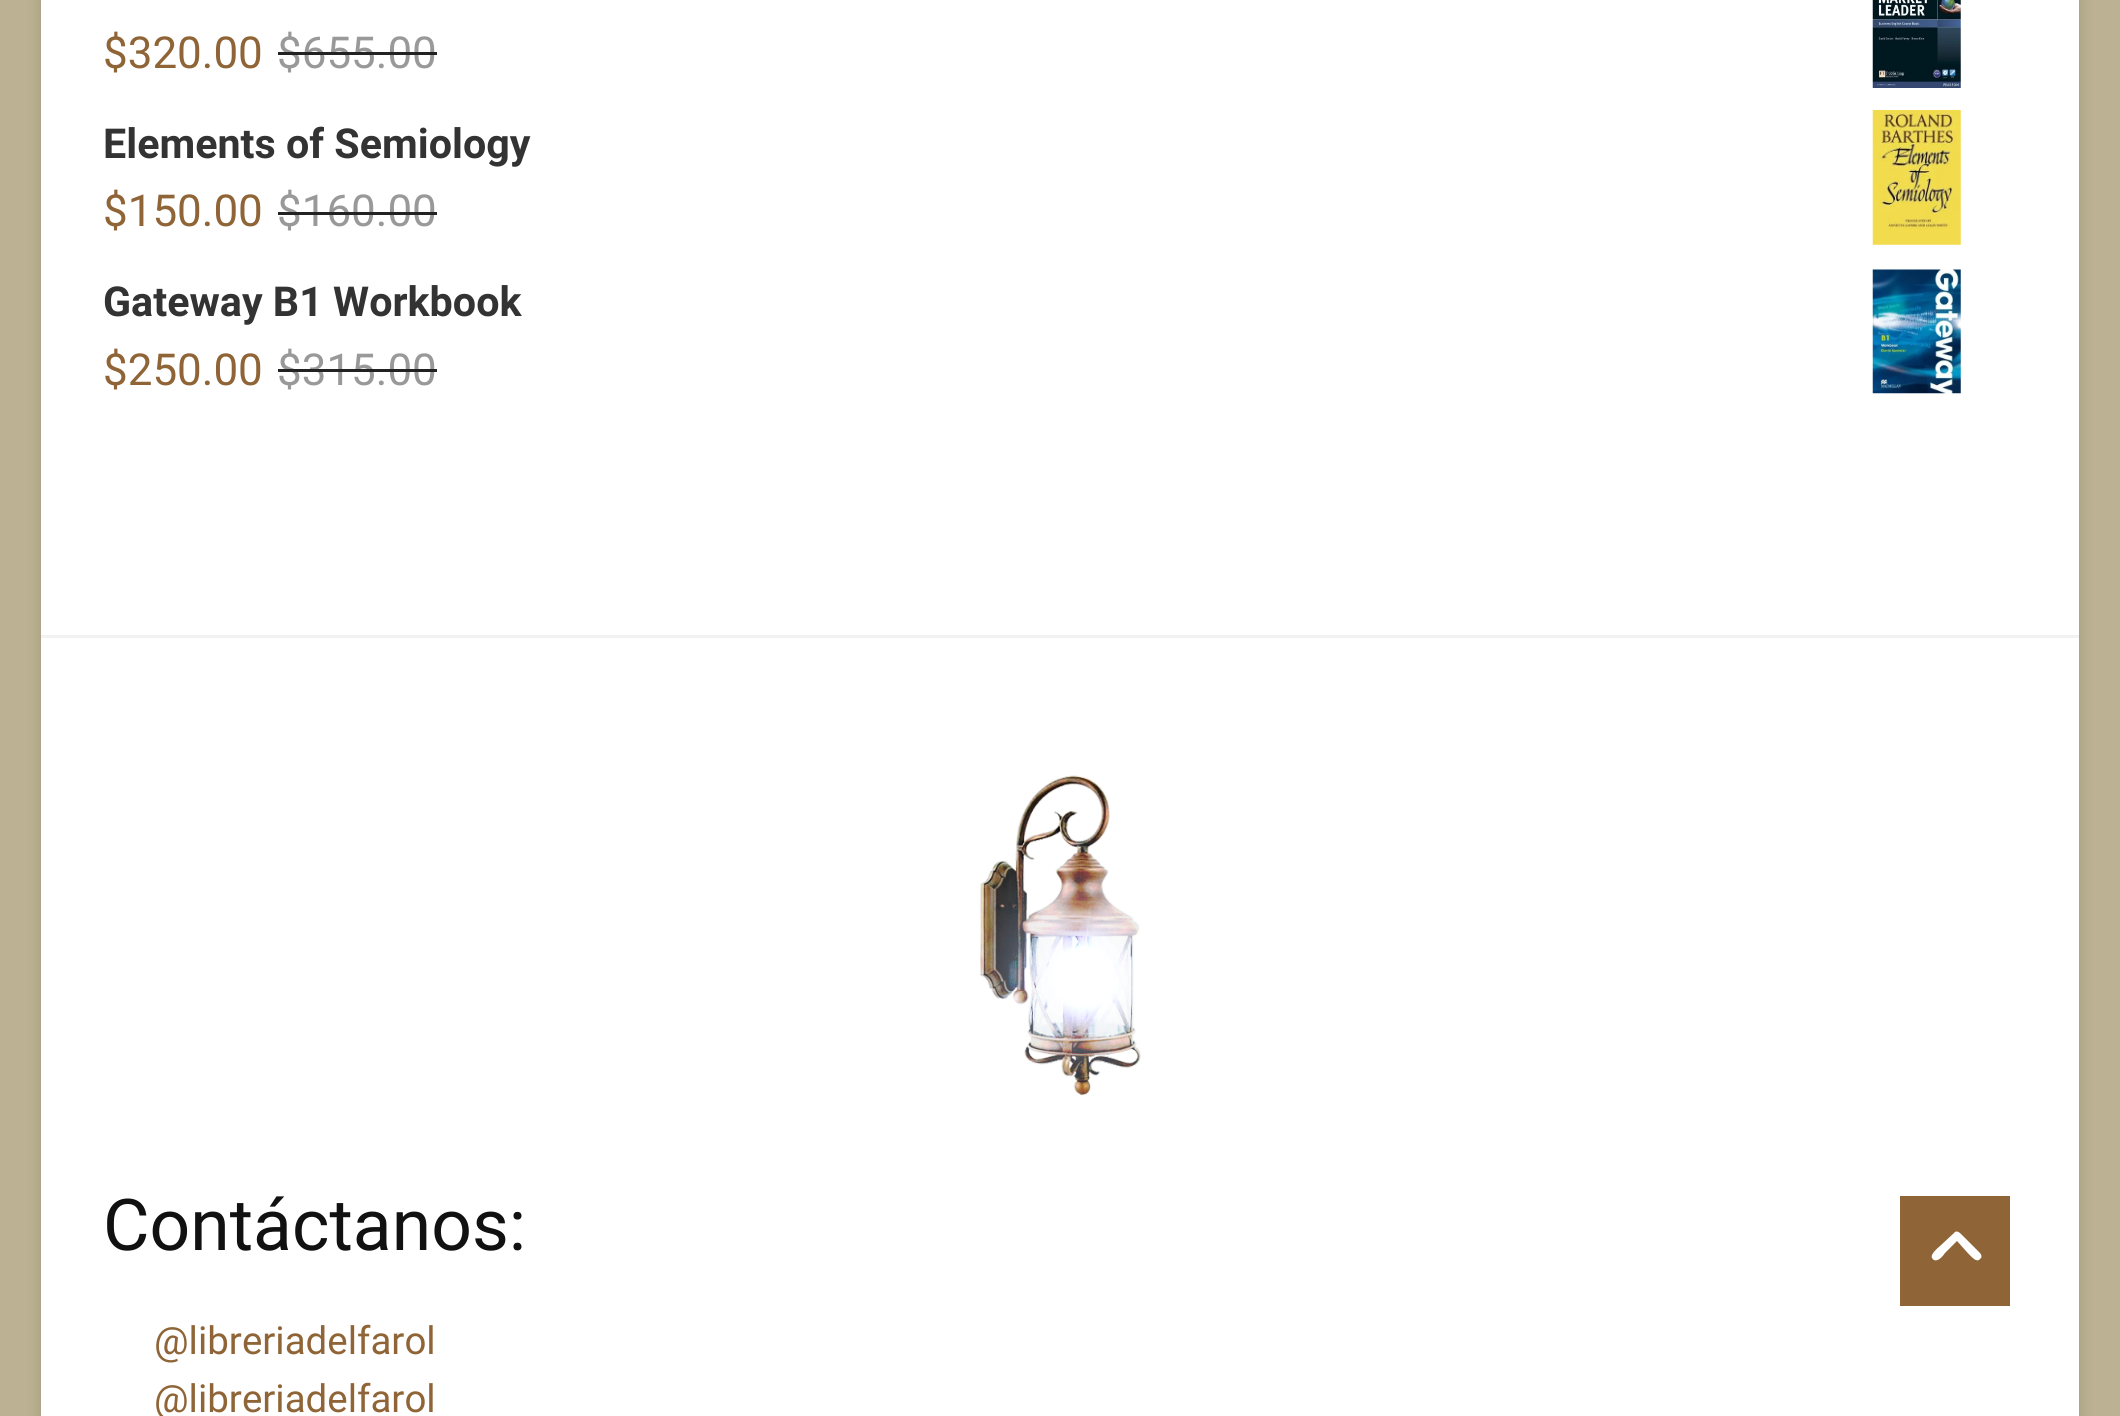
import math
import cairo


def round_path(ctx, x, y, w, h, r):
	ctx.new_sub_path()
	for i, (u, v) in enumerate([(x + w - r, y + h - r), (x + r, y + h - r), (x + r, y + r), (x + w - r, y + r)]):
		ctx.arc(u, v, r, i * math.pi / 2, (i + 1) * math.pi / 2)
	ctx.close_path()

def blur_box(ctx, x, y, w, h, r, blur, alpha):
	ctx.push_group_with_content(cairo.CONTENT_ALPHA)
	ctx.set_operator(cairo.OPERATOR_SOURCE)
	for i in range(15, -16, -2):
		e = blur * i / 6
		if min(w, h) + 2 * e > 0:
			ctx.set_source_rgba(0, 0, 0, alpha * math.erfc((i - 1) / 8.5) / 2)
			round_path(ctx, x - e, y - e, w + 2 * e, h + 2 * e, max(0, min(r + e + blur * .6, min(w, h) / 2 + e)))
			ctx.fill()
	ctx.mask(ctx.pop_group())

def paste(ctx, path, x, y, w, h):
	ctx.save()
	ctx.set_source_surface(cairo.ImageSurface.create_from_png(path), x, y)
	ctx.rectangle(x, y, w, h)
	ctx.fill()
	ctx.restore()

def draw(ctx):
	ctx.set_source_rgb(0.737, 0.698, 0.576)
	ctx.paint()
	ctx.set_source_rgb(0, 0, 0)
	blur_box(ctx, 41, -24, 2038, 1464, 0, 8, 0.15)
	ctx.set_source_rgb(1, 1, 1)
	ctx.rectangle(41, 0, 2038, 1416)
	ctx.fill()
	ctx.select_font_face('Roboto')
	ctx.set_font_size(44)
	ctx.set_source_rgb(0.561, 0.392, 0.212)
	ctx.move_to(103, 68)
	ctx.show_text('$320.00')
	ctx.set_source_rgb(0.6, 0.6, 0.6)
	ctx.move_to(277, 68)
	ctx.show_text('$655.00')
	ctx.set_source_rgb(0.133, 0.133, 0.133)
	ctx.rectangle(278, 52, 159, 3)
	ctx.fill()
	paste(ctx, 'media/1.png', 1872, 0, 89, 88)
	ctx.select_font_face('Roboto', cairo.FONT_SLANT_NORMAL, cairo.FONT_WEIGHT_BOLD)
	ctx.set_font_size(41.25)
	ctx.set_source_rgb(0.2, 0.2, 0.2)
	ctx.move_to(103, 158)
	ctx.show_text('Elements of Semiology')
	paste(ctx, 'media/2.png', 1872, 110, 89, 135)
	ctx.select_font_face('Roboto')
	ctx.set_font_size(44)
	ctx.set_source_rgb(0.561, 0.392, 0.212)
	ctx.move_to(103, 226)
	ctx.show_text('$150.00')
	ctx.set_source_rgb(0.6, 0.6, 0.6)
	ctx.move_to(277, 226)
	ctx.show_text('$160.00')
	ctx.set_source_rgb(0.133, 0.133, 0.133)
	ctx.rectangle(278, 212, 159, 3)
	ctx.fill()
	ctx.select_font_face('Roboto', cairo.FONT_SLANT_NORMAL, cairo.FONT_WEIGHT_BOLD)
	ctx.set_font_size(41.25)
	ctx.set_source_rgb(0.2, 0.2, 0.2)
	ctx.move_to(103, 316)
	ctx.show_text('Gateway B1 Workbook')
	paste(ctx, 'media/3.png', 1872, 269, 89, 125)
	ctx.select_font_face('Roboto')
	ctx.set_font_size(44)
	ctx.set_source_rgb(0.561, 0.392, 0.212)
	ctx.move_to(103, 385)
	ctx.show_text('$250.00')
	ctx.set_source_rgb(0.6, 0.6, 0.6)
	ctx.move_to(277, 385)
	ctx.show_text('$315.00')
	ctx.set_source_rgb(0.133, 0.133, 0.133)
	ctx.rectangle(278, 369, 159, 3)
	ctx.fill()
	ctx.set_source_rgb(0.949, 0.949, 0.949)
	ctx.rectangle(41, 635, 2038, 3)
	ctx.fill()
	paste(ctx, 'media/4.png', 980, 775, 161, 321)
	ctx.set_font_size(71.5)
	ctx.set_source_rgb(0.067, 0.067, 0.067)
	ctx.move_to(103, 1250)
	ctx.show_text('Contáctanos:')
	ctx.set_font_size(38.5)
	ctx.set_source_rgb(0.561, 0.392, 0.212)
	ctx.move_to(154, 1354)
	ctx.show_text('@libreriadelfarol')
	ctx.move_to(154, 1412)
	ctx.show_text('@libreriadelfarol')
	ctx.rectangle(1900, 1196, 110, 110)
	ctx.fill()
	ctx.set_source_rgb(1, 1, 1)
	ctx.new_path()
	ctx.move_to(1954, 1233)
	ctx.curve_to(1957, 1229, 1961, 1234, 1963, 1236)
	ctx.line_to(1977, 1250)
	ctx.curve_to(1979, 1252, 1984, 1256, 1980, 1259)
	ctx.curve_to(1979, 1260, 1978, 1261, 1976, 1260)
	ctx.curve_to(1973, 1260, 1960, 1244, 1957, 1241)
	ctx.line_to(1945, 1253)
	ctx.curve_to(1943, 1256, 1938, 1262, 1934, 1260)
	ctx.curve_to(1927, 1256, 1938, 1248, 1940, 1246)
	ctx.close_path()
	ctx.fill()


surface = cairo.ImageSurface(cairo.FORMAT_RGB24, 2120, 1416)
ctx = cairo.Context(surface)
options = cairo.FontOptions()
options.set_hint_metrics(cairo.HINT_METRICS_OFF)
options.set_hint_style(cairo.HINT_STYLE_NONE)
ctx.set_font_options(options)
ctx.set_miter_limit(4)
draw(ctx)
surface.write_to_png('image.png')
